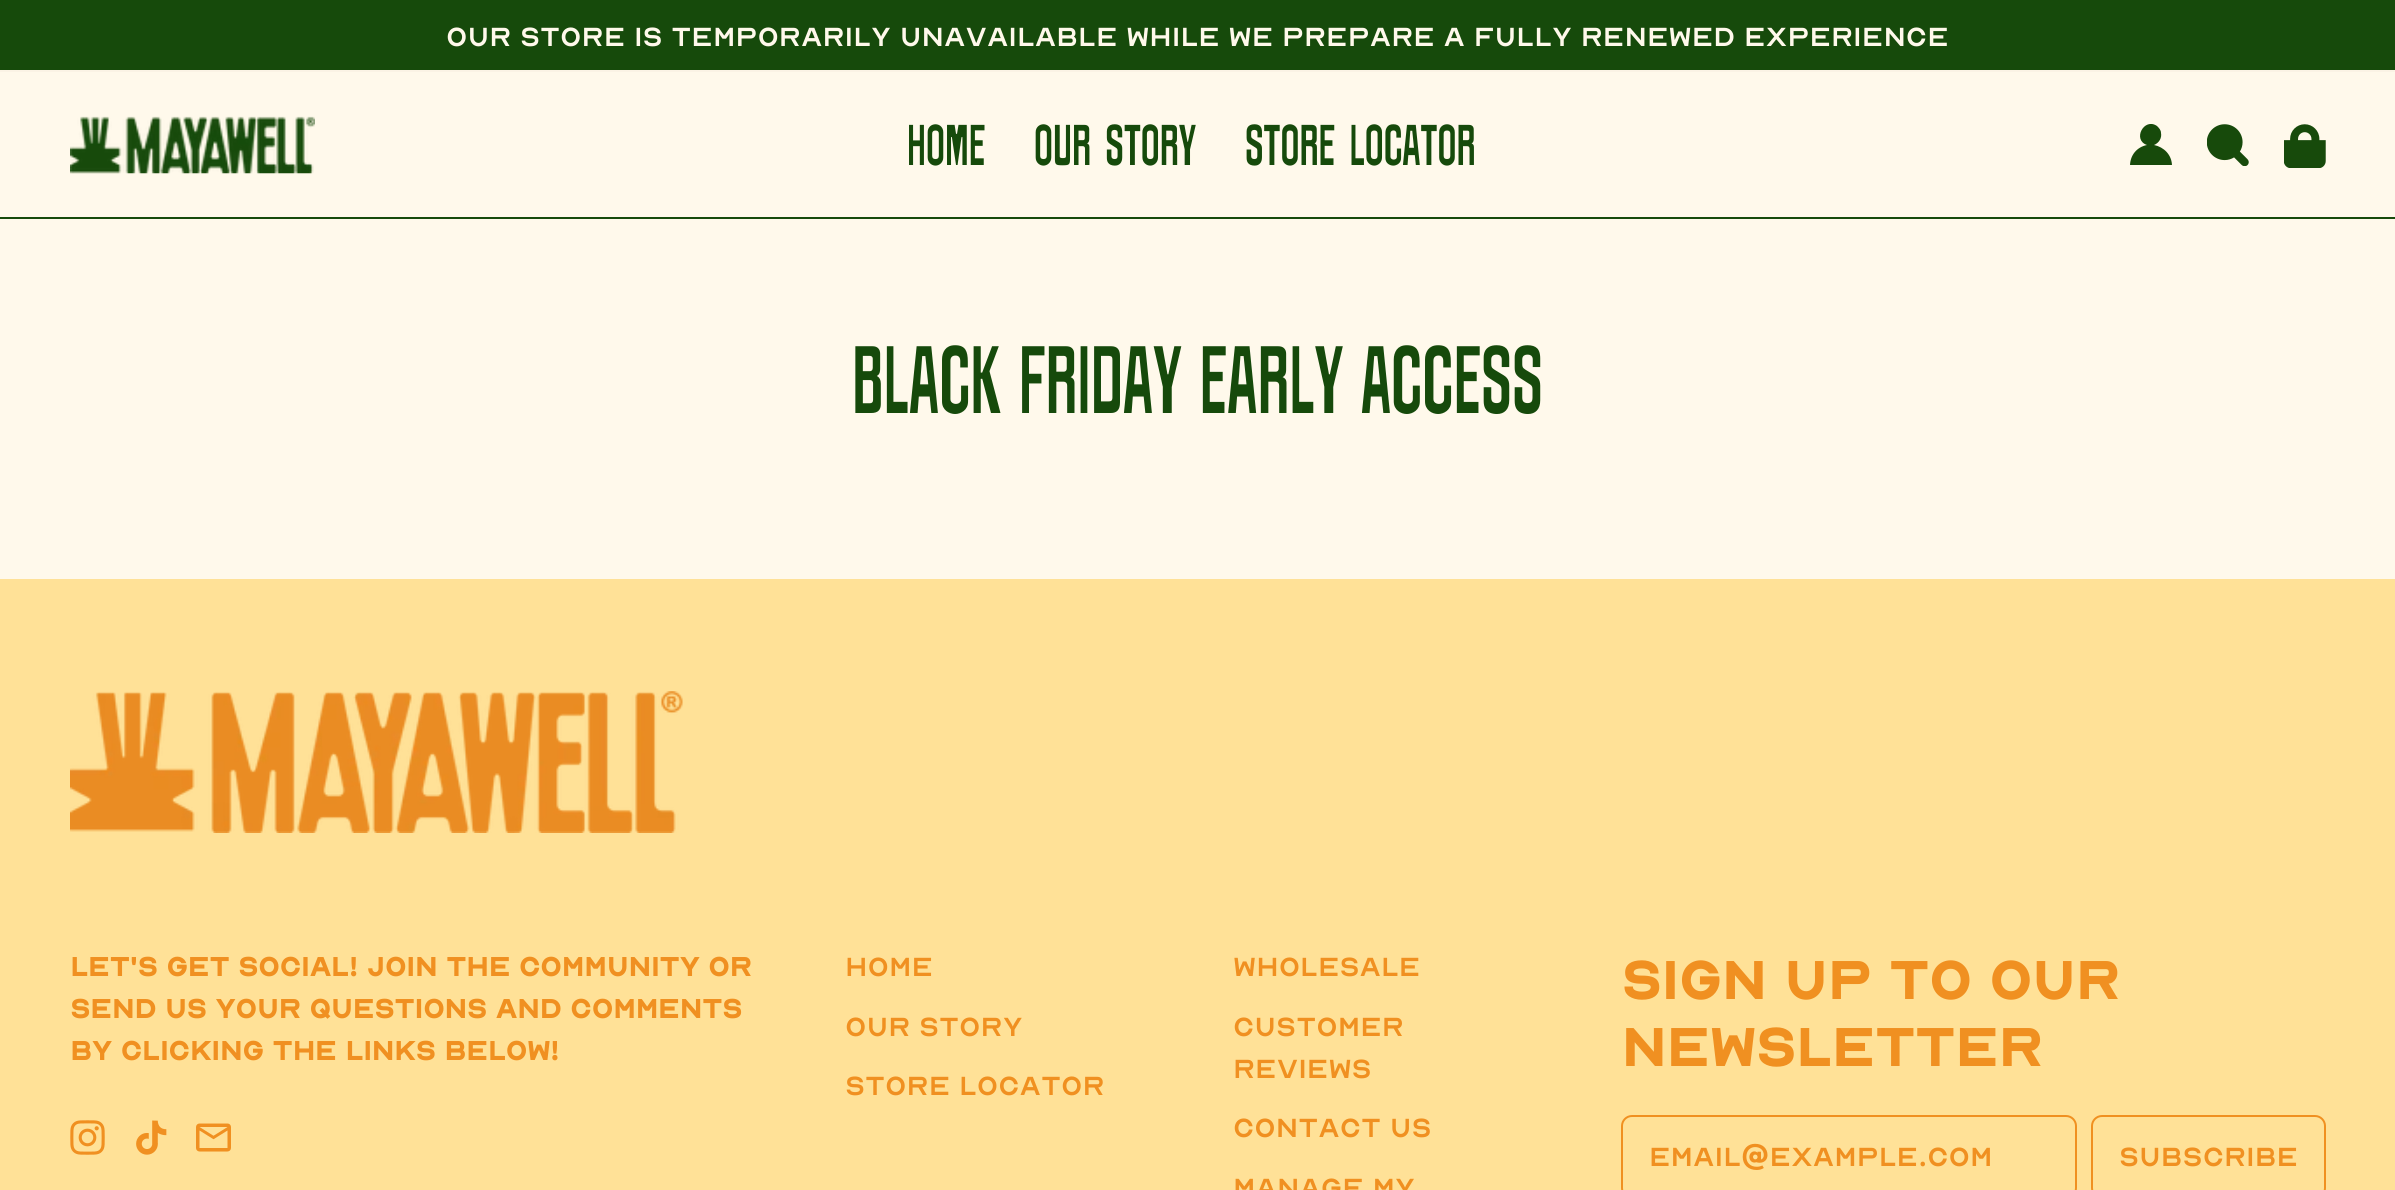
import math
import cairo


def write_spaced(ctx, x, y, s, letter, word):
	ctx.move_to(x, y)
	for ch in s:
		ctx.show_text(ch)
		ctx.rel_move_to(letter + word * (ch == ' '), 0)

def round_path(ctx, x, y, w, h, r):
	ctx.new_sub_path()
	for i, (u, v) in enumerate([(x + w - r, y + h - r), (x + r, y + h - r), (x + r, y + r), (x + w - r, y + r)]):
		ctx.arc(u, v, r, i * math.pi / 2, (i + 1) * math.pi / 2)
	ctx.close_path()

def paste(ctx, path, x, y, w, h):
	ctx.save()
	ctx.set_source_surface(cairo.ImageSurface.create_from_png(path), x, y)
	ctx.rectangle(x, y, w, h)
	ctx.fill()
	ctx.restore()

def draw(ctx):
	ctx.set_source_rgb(1, 0.973, 0.918)
	ctx.paint()
	ctx.set_source_rgb(0.984, 0.953, 0.898)
	ctx.rectangle(0, 70, 2395, 2)
	ctx.fill()
	ctx.set_source_rgb(0.086, 0.29, 0.043)
	ctx.rectangle(0, 0, 2395, 70)
	ctx.fill()
	ctx.select_font_face('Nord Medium')
	ctx.set_font_size(28)
	ctx.set_source_rgb(1, 0.973, 0.918)
	ctx.move_to(446, 46)
	ctx.show_text('Our store is temporarily unavailable while we prepare a fully renewed experience')
	ctx.set_source_rgb(0.086, 0.29, 0.043)
	ctx.rectangle(0, 217, 2395, 2)
	ctx.fill()
	paste(ctx, 'media/1.png', 70, 116, 245, 58)
	ctx.select_font_face('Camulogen')
	ctx.set_font_size(50.5)
	ctx.move_to(907, 165)
	ctx.show_text('HOME')
	write_spaced(ctx, 1034, 165, 'OUR STORY', 0, 4)
	write_spaced(ctx, 1245, 165, 'STORE LOCATOR', 0, 4)
	ctx.save()
	ctx.rectangle(2130, 124, 42, 41)
	ctx.clip()
	ctx.set_source_rgb(0.09, 0.29, 0.043)
	ctx.new_path()
	ctx.move_to(2154, 145)
	ctx.curve_to(2159, 143, 2162, 138, 2161, 133)
	ctx.curve_to(2161, 130, 2159, 128, 2157, 126)
	ctx.curve_to(2144, 117, 2132, 140, 2147, 145)
	ctx.curve_to(2137, 147, 2130, 155, 2130, 166)
	ctx.line_to(2172, 166)
	ctx.curve_to(2172, 155, 2164, 147, 2154, 145)
	ctx.close_path()
	ctx.fill()
	ctx.restore()
	paste(ctx, 'media/2.png', 2207, 124, 42, 42)
	paste(ctx, 'media/3.png', 2284, 124, 42, 44)
	ctx.set_font_size(84)
	ctx.move_to(852, 413)
	ctx.show_text('Black Friday Early Access')
	ctx.set_source_rgb(1, 0.882, 0.592)
	ctx.rectangle(0, 579, 2395, 611)
	ctx.fill()
	paste(ctx, 'media/4.png', 70, 691, 613, 142)
	ctx.select_font_face('Nord', cairo.FONT_SLANT_NORMAL, cairo.FONT_WEIGHT_BOLD)
	ctx.set_font_size(28)
	ctx.set_source_rgb(0.941, 0.565, 0.129)
	for x, y, s in [
		(70, 976, 'Let\'s get social! Join the community or'),
		(70, 1018, 'send us your questions and comments'),
		(70, 1060, 'by clicking the links below!'),
	]:
		ctx.move_to(x, y)
		ctx.show_text(s)
	paste(ctx, 'media/5.png', 70, 1120, 35, 35)
	paste(ctx, 'media/6.png', 136, 1120, 31, 35)
	paste(ctx, 'media/7.png', 196, 1123, 35, 29)
	ctx.select_font_face('Nord Medium')
	for x, y, s in [
		(845, 976, 'Home'),
		(845, 1036, 'Our Story'),
		(845, 1095, 'Store Locator'),
		(1233, 976, 'Wholesale'),
		(1233, 1036, 'Customer'),
		(1233, 1078, 'Reviews'),
		(1233, 1137, 'Contact Us'),
		(1233, 1197, 'Manage My'),
	]:
		ctx.move_to(x, y)
		ctx.show_text(s)
	ctx.select_font_face('Nord', cairo.FONT_SLANT_NORMAL, cairo.FONT_WEIGHT_BOLD)
	ctx.set_font_size(56)
	ctx.move_to(1621, 999)
	ctx.show_text('Sign up to our')
	ctx.move_to(1621, 1066)
	ctx.show_text('newsletter')
	round_path(ctx, 1622, 1116, 454, 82, 10)
	ctx.stroke()
	ctx.select_font_face('Nord Medium')
	ctx.set_font_size(28)
	ctx.move_to(1649, 1166)
	ctx.show_text('email@example.com')
	round_path(ctx, 2092, 1116, 233, 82, 10)
	ctx.stroke()
	ctx.move_to(2119, 1166)
	ctx.show_text('SUBSCRIBE')


surface = cairo.ImageSurface(cairo.FORMAT_RGB24, 2395, 1190)
ctx = cairo.Context(surface)
options = cairo.FontOptions()
options.set_hint_metrics(cairo.HINT_METRICS_OFF)
options.set_hint_style(cairo.HINT_STYLE_NONE)
ctx.set_font_options(options)
ctx.set_miter_limit(4)
draw(ctx)
surface.write_to_png('image.png')
